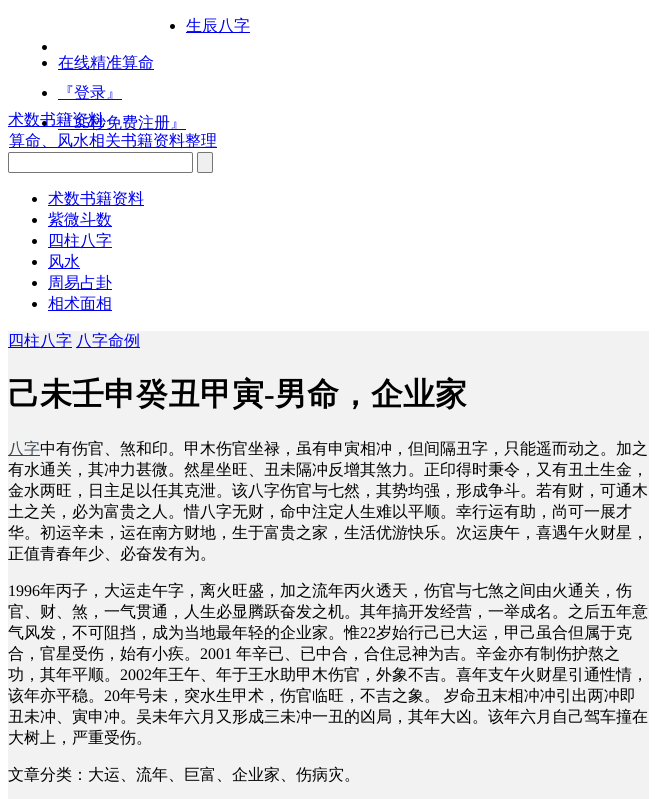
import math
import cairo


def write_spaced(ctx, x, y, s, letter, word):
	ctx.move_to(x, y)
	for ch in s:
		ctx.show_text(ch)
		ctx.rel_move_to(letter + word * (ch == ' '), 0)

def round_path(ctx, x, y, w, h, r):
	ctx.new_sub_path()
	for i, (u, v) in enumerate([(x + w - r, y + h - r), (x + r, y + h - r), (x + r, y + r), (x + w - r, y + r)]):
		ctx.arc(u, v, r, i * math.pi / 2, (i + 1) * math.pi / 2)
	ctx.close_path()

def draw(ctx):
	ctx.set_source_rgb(1, 1, 1)
	ctx.paint()
	ctx.set_source_rgb(0, 0, 0)
	ctx.arc(172.5, 26.5, 2.5, 0, 2 * math.pi)
	ctx.fill()
	ctx.set_source_rgb(0, 0, 0.933)
	ctx.rectangle(186, 32, 64, 1)
	ctx.fill()
	ctx.select_font_face('WenQuanYi Zen Hei Medium')
	ctx.set_font_size(16)
	ctx.move_to(186, 31)
	ctx.show_text('生辰八字')
	ctx.set_source_rgb(0, 0, 0)
	ctx.new_path()
	ctx.arc(44.5, 63.5, 2.5, 0, 2 * math.pi)
	ctx.fill()
	ctx.set_source_rgb(0, 0, 0.933)
	ctx.rectangle(58, 69, 96, 1)
	ctx.fill()
	ctx.move_to(58, 68)
	ctx.show_text('在线精准算命')
	ctx.set_source_rgb(0, 0, 0)
	ctx.new_path()
	ctx.arc(44.5, 47.5, 2.5, 0, 2 * math.pi)
	ctx.fill()
	ctx.arc(44.5, 93.5, 2.5, 0, 2 * math.pi)
	ctx.fill()
	ctx.set_source_rgb(0, 0, 0.933)
	ctx.rectangle(58, 99, 64, 1)
	ctx.fill()
	ctx.move_to(58, 98)
	ctx.show_text('『登录』')
	ctx.set_source_rgb(0, 0, 0)
	ctx.new_path()
	ctx.arc(44.5, 123.5, 2.5, 0, 2 * math.pi)
	ctx.fill()
	ctx.set_source_rgb(0, 0, 0.933)
	ctx.move_to(58, 128)
	ctx.show_text('『')
	ctx.select_font_face('Liberation Serif')
	ctx.move_to(74, 128)
	ctx.show_text('35')
	ctx.rectangle(58, 129, 128, 1)
	ctx.fill()
	ctx.select_font_face('WenQuanYi Zen Hei Medium')
	ctx.move_to(90, 128)
	ctx.show_text('秒免费注册』')
	ctx.rectangle(8, 126, 96, 1)
	ctx.fill()
	ctx.move_to(8, 125)
	ctx.show_text('术数书籍资料')
	ctx.rectangle(9, 147, 208, 1)
	ctx.fill()
	ctx.move_to(9, 146)
	ctx.show_text('算命、风水相关书籍资料整理')
	round_path(ctx, 8.5, 152.5, 184, 20, 1.5)
	ctx.set_source_rgb(0.463, 0.463, 0.463)
	ctx.set_line_width(1)
	ctx.stroke()
	ctx.set_source_rgb(0.937, 0.937, 0.937)
	round_path(ctx, 197.5, 152.5, 15, 20, 1.5)
	ctx.fill_preserve()
	ctx.set_source_rgb(0.463, 0.463, 0.463)
	ctx.stroke()
	ctx.set_source_rgb(0, 0, 0)
	ctx.arc(34.5, 199.5, 2.5, 0, 2 * math.pi)
	ctx.fill()
	ctx.set_source_rgb(0, 0, 0.933)
	ctx.rectangle(48, 205, 96, 1)
	ctx.fill()
	ctx.move_to(48, 204)
	ctx.show_text('术数书籍资料')
	ctx.set_source_rgb(0, 0, 0)
	ctx.new_path()
	ctx.arc(34.5, 220.5, 2.5, 0, 2 * math.pi)
	ctx.fill()
	ctx.set_source_rgb(0, 0, 0.933)
	ctx.rectangle(48, 226, 64, 1)
	ctx.fill()
	ctx.move_to(48, 225)
	ctx.show_text('紫微斗数')
	ctx.set_source_rgb(0, 0, 0)
	ctx.new_path()
	ctx.arc(34.5, 241.5, 2.5, 0, 2 * math.pi)
	ctx.fill()
	ctx.set_source_rgb(0, 0, 0.933)
	ctx.rectangle(48, 247, 64, 1)
	ctx.fill()
	ctx.move_to(48, 246)
	ctx.show_text('四柱八字')
	ctx.set_source_rgb(0, 0, 0)
	ctx.new_path()
	ctx.arc(34.5, 262.5, 2.5, 0, 2 * math.pi)
	ctx.fill()
	ctx.set_source_rgb(0, 0, 0.933)
	ctx.rectangle(48, 268, 32, 1)
	ctx.fill()
	ctx.move_to(48, 267)
	ctx.show_text('风水')
	ctx.set_source_rgb(0, 0, 0)
	ctx.new_path()
	ctx.arc(34.5, 283.5, 2.5, 0, 2 * math.pi)
	ctx.fill()
	ctx.set_source_rgb(0, 0, 0.933)
	ctx.rectangle(48, 289, 64, 1)
	ctx.fill()
	ctx.move_to(48, 288)
	ctx.show_text('周易占卦')
	ctx.set_source_rgb(0, 0, 0)
	ctx.new_path()
	ctx.arc(34.5, 304.5, 2.5, 0, 2 * math.pi)
	ctx.fill()
	ctx.set_source_rgb(0, 0, 0.933)
	ctx.rectangle(48, 310, 64, 1)
	ctx.fill()
	ctx.move_to(48, 309)
	ctx.show_text('相术面相')
	ctx.set_source_rgb(0.949, 0.949, 0.949)
	ctx.rectangle(8, 331, 641, 468)
	ctx.fill()
	ctx.set_source_rgb(0, 0, 0.933)
	ctx.rectangle(8, 347, 64, 1)
	ctx.fill()
	ctx.move_to(8, 346)
	ctx.show_text('四柱八字')
	ctx.rectangle(76, 347, 64, 1)
	ctx.fill()
	ctx.move_to(76, 346)
	ctx.show_text('八字命例')
	ctx.select_font_face('WenQuanYi Zen Hei', cairo.FONT_SLANT_NORMAL, cairo.FONT_WEIGHT_BOLD)
	ctx.set_font_size(32)
	ctx.set_source_rgb(0, 0, 0)
	ctx.move_to(8, 405)
	ctx.show_text('己未壬申癸丑甲寅')
	ctx.select_font_face('Liberation Serif', cairo.FONT_SLANT_NORMAL, cairo.FONT_WEIGHT_BOLD)
	ctx.move_to(264, 405)
	ctx.show_text('-')
	ctx.select_font_face('WenQuanYi Zen Hei', cairo.FONT_SLANT_NORMAL, cairo.FONT_WEIGHT_BOLD)
	ctx.move_to(275, 405)
	ctx.show_text('男命，企业家')
	ctx.set_source_rgb(0.239, 0.275, 0.302)
	ctx.rectangle(8, 455, 32, 1)
	ctx.fill()
	ctx.select_font_face('WenQuanYi Zen Hei Medium')
	ctx.set_font_size(16)
	ctx.move_to(8, 454)
	ctx.show_text('八字')
	ctx.set_source_rgb(0, 0, 0)
	for x, y, s in [
		(40, 454, '中有伤官、煞和印。甲木伤官坐禄，虽有申寅相冲，但间隔丑字，只能遥而动之。加之'),
		(8, 475, '有水通关，其冲力甚微。然星坐旺、丑未隔冲反增其煞力。正印得时秉令，又有丑土生金，'),
		(8, 496, '金水两旺，日主足以任其克泄。该八字伤官与七然，其势均强，形成争斗。若有财，可通木'),
		(8, 517, '土之关，必为富贵之人。惜八字无财，命中注定人生难以平顺。幸行运有助，尚可一展才'),
		(8, 538, '华。初运辛未，运在南方财地，生于富贵之家，生活优游快乐。次运庚午，喜遇午火财星，'),
		(8, 559, '正值青春年少、必奋发有为。'),
	]:
		ctx.move_to(x, y)
		ctx.show_text(s)
	ctx.select_font_face('Liberation Serif')
	ctx.move_to(8, 596)
	ctx.show_text('1996')
	ctx.select_font_face('WenQuanYi Zen Hei Medium')
	for x, y, s in [
		(40, 596, '年丙子，大运走午字，离火旺盛，加之流年丙火透天，伤官与七煞之间由火通关，伤'),
		(8, 617, '官、财、煞，一气贯通，人生必显腾跃奋发之机。其年搞开发经营，一举成名。之后五年意'),
		(8, 638, '气风发，不可阻挡，成为当地最年轻的企业家。惟'),
	]:
		ctx.move_to(x, y)
		ctx.show_text(s)
	ctx.select_font_face('Liberation Serif')
	ctx.move_to(360, 638)
	ctx.show_text('22')
	ctx.select_font_face('WenQuanYi Zen Hei Medium')
	ctx.move_to(376, 638)
	ctx.show_text('岁始行己已大运，甲己虽合但属于克')
	ctx.move_to(8, 659)
	ctx.show_text('合，官星受伤，始有小疾。')
	ctx.select_font_face('Liberation Serif')
	ctx.move_to(200, 659)
	ctx.show_text('2001')
	ctx.select_font_face('WenQuanYi Zen Hei Medium')
	ctx.move_to(236, 659)
	ctx.show_text('年辛已、已中合，合住忌神为吉。辛金亦有制伤护熬之')
	ctx.move_to(8, 680)
	ctx.show_text('功，其年平顺。')
	ctx.select_font_face('Liberation Serif')
	ctx.move_to(120, 680)
	ctx.show_text('2002')
	ctx.select_font_face('WenQuanYi Zen Hei Medium')
	ctx.move_to(152, 680)
	ctx.show_text('年王午、年于王水助甲木伤官，外象不吉。喜年支午火财星引通性情，')
	ctx.move_to(8, 701)
	ctx.show_text('该年亦平稳。')
	ctx.select_font_face('Liberation Serif')
	ctx.move_to(104, 701)
	ctx.show_text('20')
	ctx.select_font_face('WenQuanYi Zen Hei Medium')
	write_spaced(ctx, 120, 701, '年号未，突水生甲术，伤官临旺，不吉之象。 岁命丑末相冲冲引出两冲即', 0, -1)
	for x, y, s in [
		(8, 722, '丑未冲、寅申冲。吴未年六月又形成三未冲一丑的凶局，其年大凶。该年六月自己驾车撞在'),
		(8, 743, '大树上，严重受伤。'),
		(8, 780, '文章分类：大运、流年、巨富、企业家、伤病灾。'),
	]:
		ctx.move_to(x, y)
		ctx.show_text(s)


surface = cairo.ImageSurface(cairo.FORMAT_RGB24, 657, 799)
ctx = cairo.Context(surface)
options = cairo.FontOptions()
options.set_hint_metrics(cairo.HINT_METRICS_OFF)
options.set_hint_style(cairo.HINT_STYLE_NONE)
ctx.set_font_options(options)
ctx.set_miter_limit(4)
draw(ctx)
surface.write_to_png('image.png')
